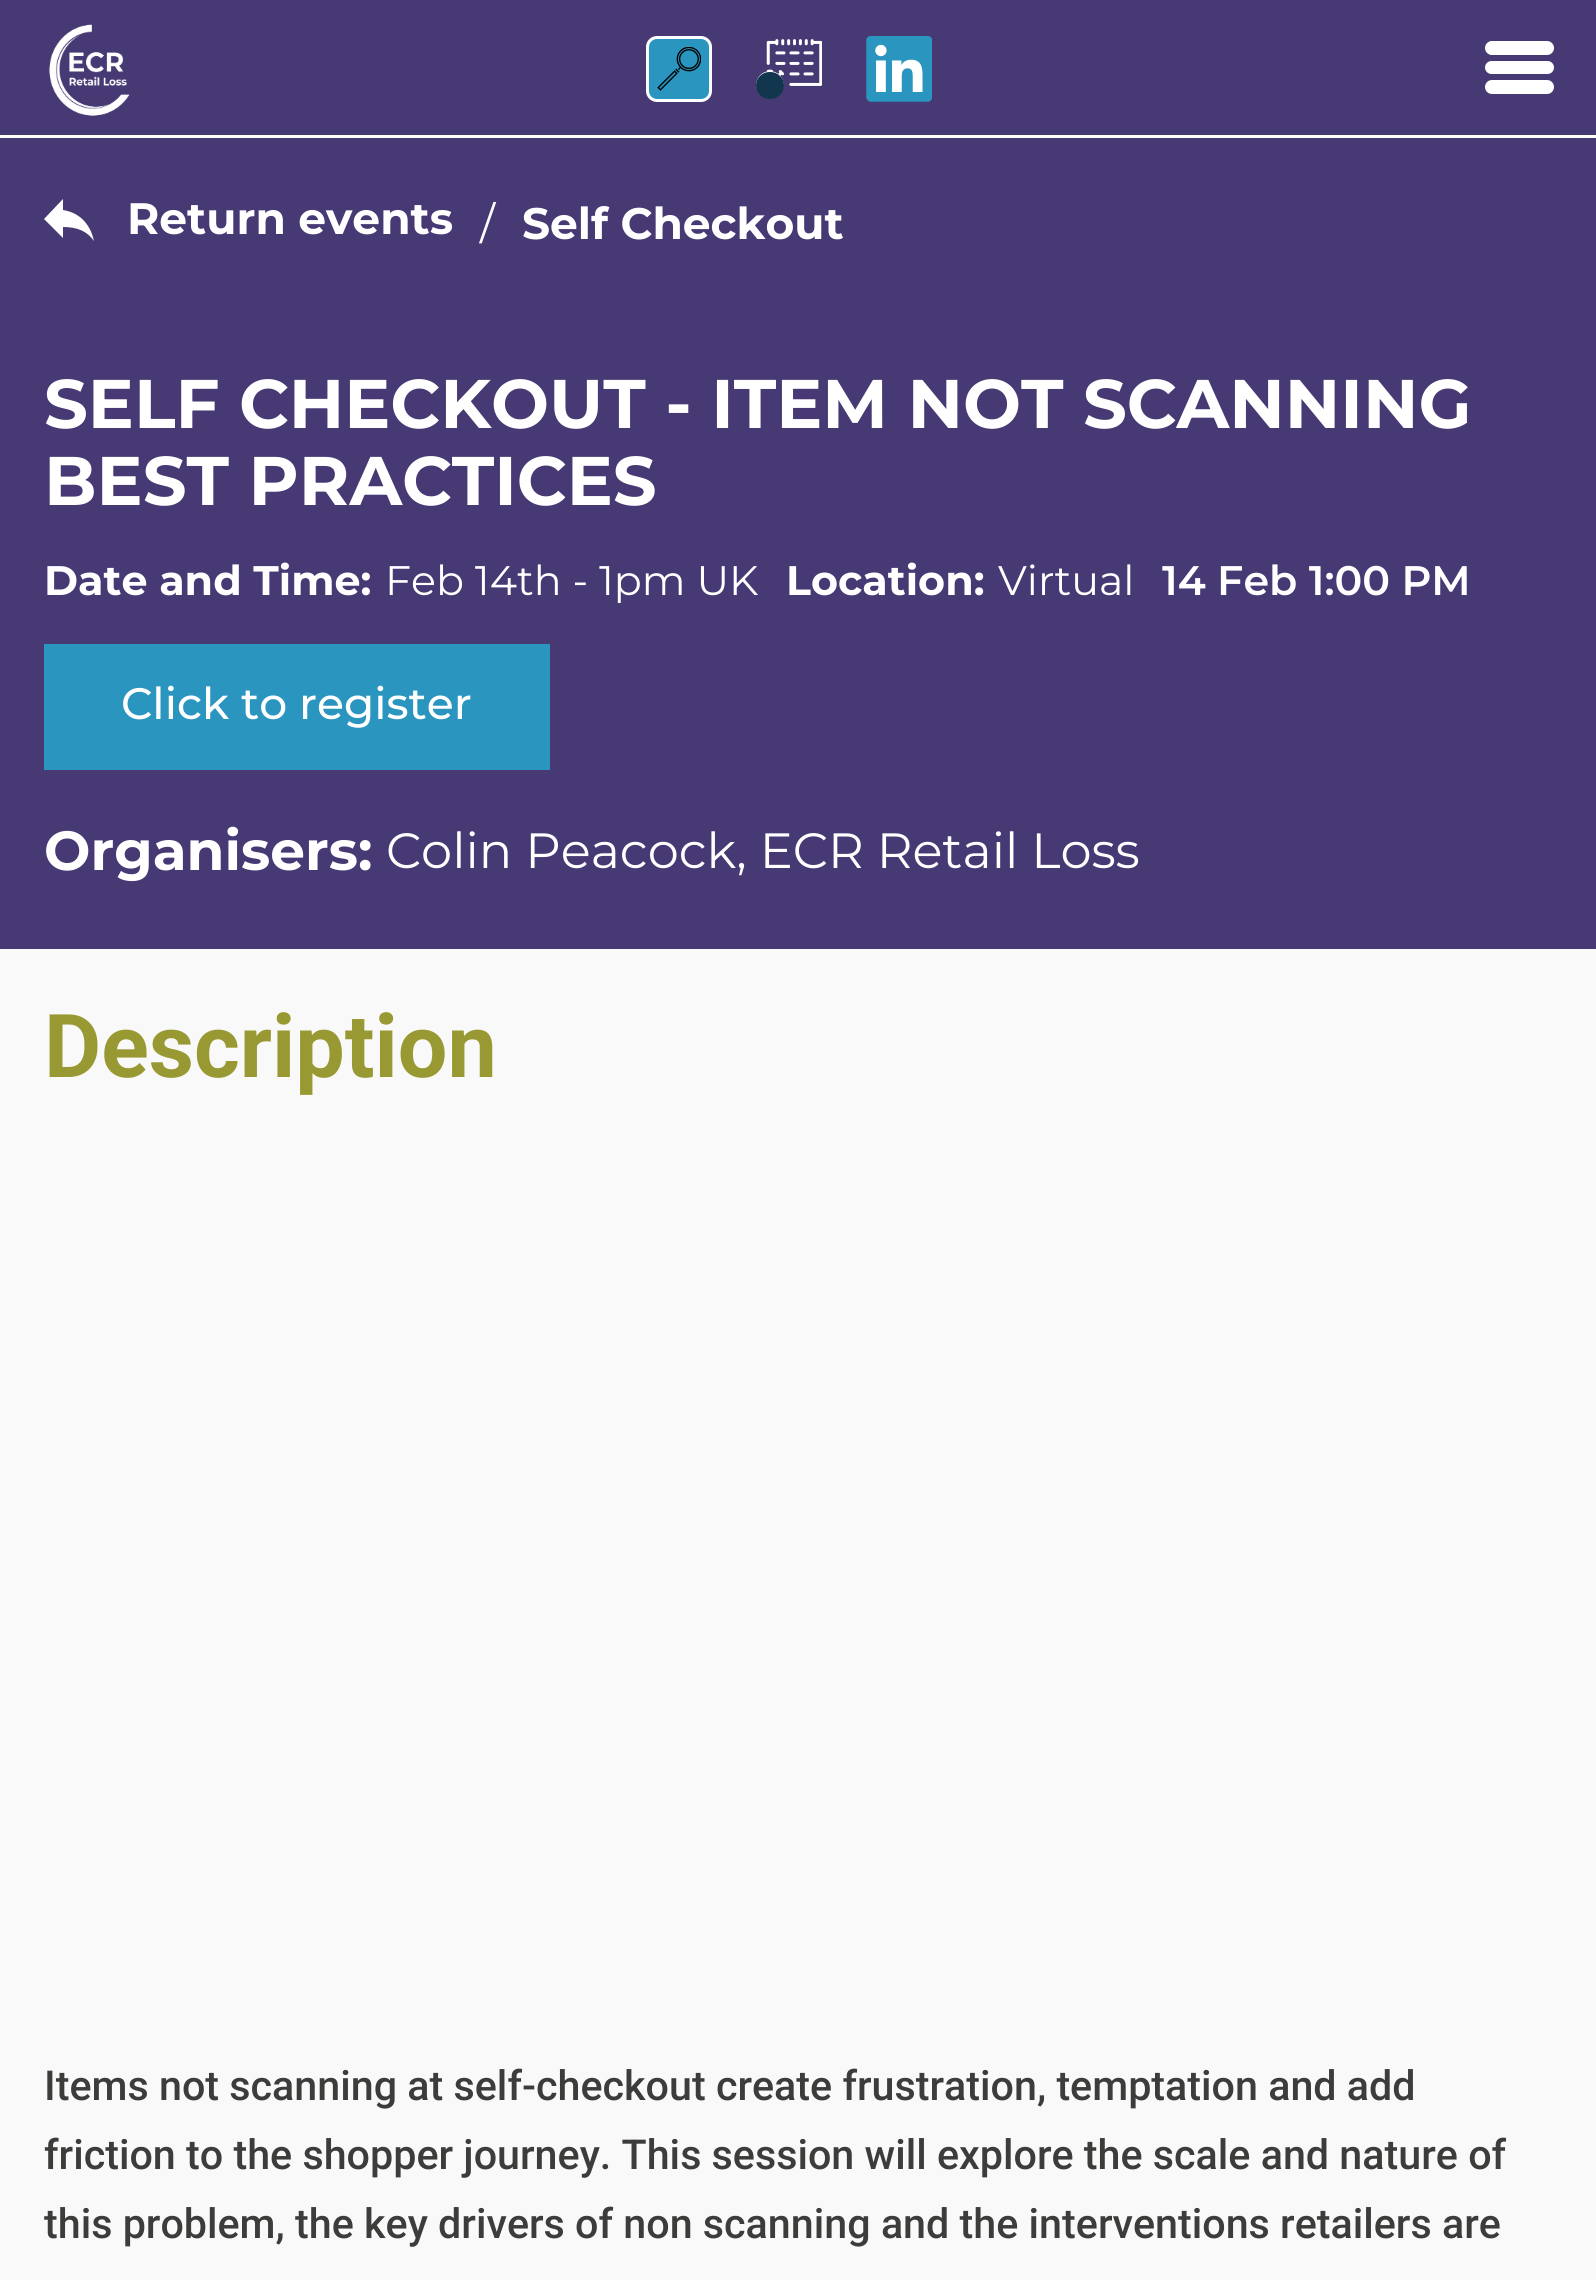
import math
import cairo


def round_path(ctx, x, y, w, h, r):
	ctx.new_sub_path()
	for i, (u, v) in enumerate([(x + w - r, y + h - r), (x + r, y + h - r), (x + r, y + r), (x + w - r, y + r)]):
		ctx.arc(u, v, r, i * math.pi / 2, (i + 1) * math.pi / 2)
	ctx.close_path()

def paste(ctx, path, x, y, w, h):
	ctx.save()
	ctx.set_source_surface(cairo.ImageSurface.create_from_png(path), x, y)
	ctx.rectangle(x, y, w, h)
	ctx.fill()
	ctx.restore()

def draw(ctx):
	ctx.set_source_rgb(0.278, 0.224, 0.455)
	ctx.paint()
	paste(ctx, 'media/1.png', 49, 24, 81, 92)
	ctx.set_source_rgb(0.165, 0.584, 0.749)
	round_path(ctx, 647.5, 37.5, 63, 63, 9.5)
	ctx.fill_preserve()
	ctx.set_source_rgb(1, 1, 1)
	ctx.set_line_width(3)
	ctx.stroke()
	paste(ctx, 'media/2.png', 657, 47, 44, 44)
	paste(ctx, 'media/3.png', 756, 39, 66, 60)
	ctx.set_source_rgb(0.067, 0.212, 0.306)
	round_path(ctx, 756, 72, 28, 27, 13.5)
	ctx.fill()
	paste(ctx, 'media/4.png', 866, 36, 66, 66)
	ctx.set_source_rgb(1, 1, 1)
	round_path(ctx, 1485, 41, 69, 14, 7)
	ctx.fill()
	round_path(ctx, 1485, 61, 69, 13, 6.5)
	ctx.fill()
	round_path(ctx, 1485, 80, 69, 14, 7)
	ctx.fill()
	ctx.rectangle(0, 135, 1596, 3)
	ctx.fill()
	ctx.new_path()
	ctx.move_to(63, 210)
	ctx.line_to(63, 199)
	ctx.line_to(44, 219)
	ctx.line_to(63, 238)
	ctx.line_to(63, 227)
	ctx.curve_to(77, 227, 87, 231, 94, 241)
	ctx.curve_to(91, 227, 82, 213, 63, 210)
	ctx.close_path()
	ctx.fill()
	ctx.select_font_face('Montserrat Thin')
	ctx.set_font_size(44)
	ctx.move_to(127, 234)
	ctx.show_text('Return events')
	ctx.select_font_face('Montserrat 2 Thin')
	ctx.move_to(480, 239)
	ctx.show_text('/')
	ctx.select_font_face('Montserrat Thin')
	ctx.move_to(522, 239)
	ctx.show_text('Self Checkout')
	ctx.set_font_size(68.75)
	ctx.move_to(44, 428)
	ctx.show_text('SELF CHECKOUT - ITEM NOT SCANNING')
	ctx.move_to(44, 505)
	ctx.show_text('BEST PRACTICES')
	ctx.set_font_size(41.25)
	ctx.move_to(44, 595)
	ctx.show_text('Date and Time:')
	ctx.select_font_face('Montserrat 2 Thin')
	ctx.move_to(385, 595)
	ctx.show_text('Feb 14th - 1pm UK')
	ctx.select_font_face('Montserrat Thin')
	ctx.move_to(786, 595)
	ctx.show_text('Location:')
	ctx.select_font_face('Montserrat 2 Thin')
	ctx.move_to(998, 595)
	ctx.show_text('Virtual')
	ctx.select_font_face('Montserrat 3 Thin')
	ctx.move_to(1162, 595)
	ctx.show_text('14 Feb 1:00 PM')
	ctx.set_source_rgb(0.165, 0.584, 0.749)
	ctx.rectangle(44, 644, 506, 126)
	ctx.fill()
	ctx.select_font_face('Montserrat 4 Thin')
	ctx.set_font_size(44)
	ctx.set_source_rgb(1, 1, 1)
	ctx.move_to(121, 719)
	ctx.show_text('Click to register')
	ctx.select_font_face('Montserrat Thin')
	ctx.set_font_size(55)
	ctx.move_to(44, 870)
	ctx.show_text('Organisers:')
	ctx.select_font_face('Montserrat 2 Thin')
	ctx.set_font_size(49.5)
	ctx.move_to(386, 868)
	ctx.show_text('Colin Peacock, ECR Retail Loss')
	ctx.set_source_rgb(0.976, 0.976, 0.976)
	ctx.rectangle(0, 949, 1596, 1331)
	ctx.fill()
	ctx.select_font_face('Roboto', cairo.FONT_SLANT_NORMAL, cairo.FONT_WEIGHT_BOLD)
	ctx.set_font_size(88)
	ctx.set_source_rgb(0.6, 0.6, 0.2)
	ctx.move_to(44, 1077)
	ctx.show_text('Description')
	ctx.select_font_face('Roboto Medium')
	ctx.set_font_size(41.25)
	ctx.set_source_rgb(0.235, 0.235, 0.231)
	for x, y, s in [
		(44, 2100, 'Items not scanning at self-checkout create frustration, temptation and add'),
		(44, 2169, 'friction to the shopper journey. This session will explore the scale and nature of'),
		(44, 2238, 'this problem, the key drivers of non scanning and the interventions retailers are'),
	]:
		ctx.move_to(x, y)
		ctx.show_text(s)


surface = cairo.ImageSurface(cairo.FORMAT_RGB24, 1596, 2280)
ctx = cairo.Context(surface)
options = cairo.FontOptions()
options.set_hint_metrics(cairo.HINT_METRICS_OFF)
options.set_hint_style(cairo.HINT_STYLE_NONE)
ctx.set_font_options(options)
ctx.set_miter_limit(4)
draw(ctx)
surface.write_to_png('image.png')
